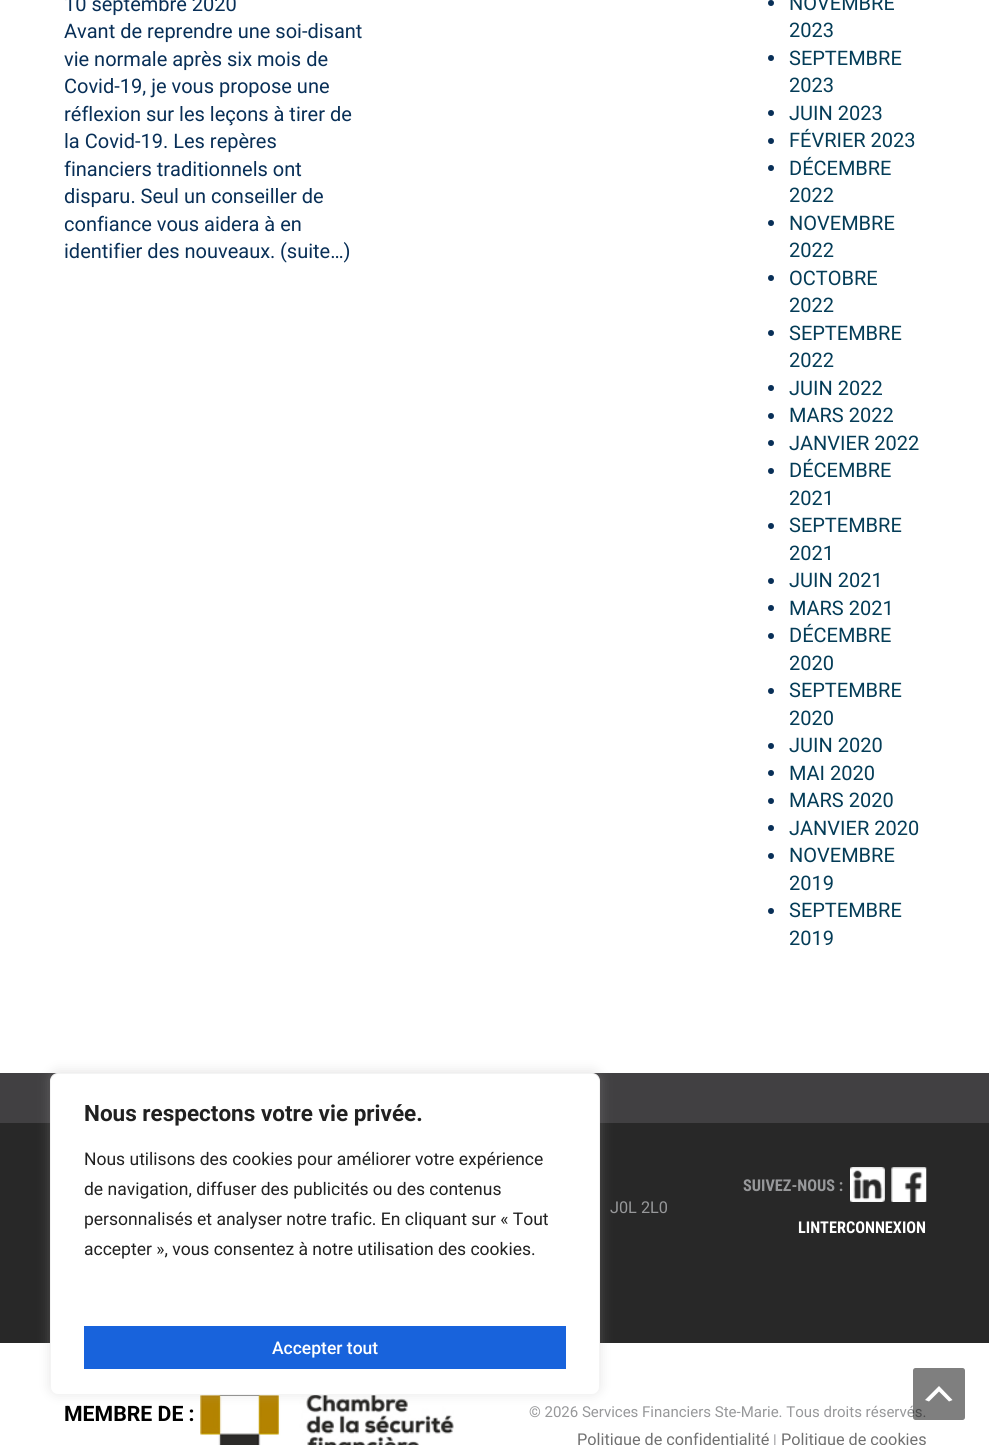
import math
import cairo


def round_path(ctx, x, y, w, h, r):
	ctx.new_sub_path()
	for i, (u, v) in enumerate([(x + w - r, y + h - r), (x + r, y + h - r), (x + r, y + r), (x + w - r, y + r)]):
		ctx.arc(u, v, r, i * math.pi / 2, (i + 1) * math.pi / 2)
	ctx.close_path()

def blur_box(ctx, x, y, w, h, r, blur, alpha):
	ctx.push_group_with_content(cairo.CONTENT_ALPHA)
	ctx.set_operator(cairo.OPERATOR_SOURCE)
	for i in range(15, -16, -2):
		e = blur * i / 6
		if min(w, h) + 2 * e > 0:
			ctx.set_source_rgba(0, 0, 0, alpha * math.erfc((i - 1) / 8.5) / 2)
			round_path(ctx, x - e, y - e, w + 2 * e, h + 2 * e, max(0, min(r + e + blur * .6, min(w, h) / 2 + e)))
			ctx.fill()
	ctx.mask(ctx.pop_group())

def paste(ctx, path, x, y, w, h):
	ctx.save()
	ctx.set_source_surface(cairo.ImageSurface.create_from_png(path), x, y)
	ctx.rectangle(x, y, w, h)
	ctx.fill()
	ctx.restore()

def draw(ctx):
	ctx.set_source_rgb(1, 1, 1)
	ctx.paint()
	ctx.select_font_face('Roboto')
	ctx.set_font_size(20)
	ctx.set_source_rgb(0.035, 0.184, 0.341)
	for x, y, s in [
		(64, 11, '10 septembre 2020'),
		(64, 38, 'Avant de reprendre une soi-disant'),
		(64, 66, 'vie normale après six mois de'),
		(64, 93, 'Covid-19, je vous propose une'),
		(64, 121, 'réflexion sur les leçons à tirer de'),
		(64, 148, 'la Covid-19. Les repères'),
		(64, 176, 'financiers traditionnels ont'),
		(64, 203, 'disparu. Seul un conseiller de'),
		(64, 231, 'confiance vous aidera à en'),
		(64, 258, 'identifier des nouveaux.'),
		(280, 258, '(suite…)'),
	]:
		ctx.move_to(x, y)
		ctx.show_text(s)
	ctx.new_path()
	ctx.arc(771, 3, 3, 0, 2 * math.pi)
	ctx.fill()
	ctx.set_source_rgb(0.016, 0.235, 0.341)
	ctx.move_to(789, 10)
	ctx.show_text('NOVEMBRE')
	ctx.move_to(789, 37)
	ctx.show_text('2023')
	ctx.set_source_rgb(0.035, 0.184, 0.341)
	ctx.new_path()
	ctx.arc(771, 58, 3, 0, 2 * math.pi)
	ctx.fill()
	ctx.set_source_rgb(0.016, 0.235, 0.341)
	ctx.move_to(789, 65)
	ctx.show_text('SEPTEMBRE')
	ctx.move_to(789, 92)
	ctx.show_text('2023')
	ctx.set_source_rgb(0.035, 0.184, 0.341)
	ctx.new_path()
	ctx.arc(771, 113, 3, 0, 2 * math.pi)
	ctx.fill()
	ctx.set_source_rgb(0.016, 0.235, 0.341)
	ctx.move_to(789, 120)
	ctx.show_text('JUIN 2023')
	ctx.set_source_rgb(0.035, 0.184, 0.341)
	ctx.new_path()
	ctx.arc(771, 141, 3, 0, 2 * math.pi)
	ctx.fill()
	ctx.set_source_rgb(0.016, 0.235, 0.341)
	ctx.move_to(789, 147)
	ctx.show_text('FÉVRIER 2023')
	ctx.set_source_rgb(0.035, 0.184, 0.341)
	ctx.new_path()
	ctx.arc(771, 168, 3, 0, 2 * math.pi)
	ctx.fill()
	ctx.set_source_rgb(0.016, 0.235, 0.341)
	ctx.move_to(789, 175)
	ctx.show_text('DÉCEMBRE')
	ctx.move_to(789, 202)
	ctx.show_text('2022')
	ctx.set_source_rgb(0.035, 0.184, 0.341)
	ctx.new_path()
	ctx.arc(771, 223, 3, 0, 2 * math.pi)
	ctx.fill()
	ctx.set_source_rgb(0.016, 0.235, 0.341)
	ctx.move_to(789, 230)
	ctx.show_text('NOVEMBRE')
	ctx.move_to(789, 257)
	ctx.show_text('2022')
	ctx.set_source_rgb(0.035, 0.184, 0.341)
	ctx.new_path()
	ctx.arc(771, 278, 3, 0, 2 * math.pi)
	ctx.fill()
	ctx.set_source_rgb(0.016, 0.235, 0.341)
	ctx.move_to(789, 285)
	ctx.show_text('OCTOBRE')
	ctx.move_to(789, 312)
	ctx.show_text('2022')
	ctx.set_source_rgb(0.035, 0.184, 0.341)
	ctx.new_path()
	ctx.arc(771, 333, 3, 0, 2 * math.pi)
	ctx.fill()
	ctx.set_source_rgb(0.016, 0.235, 0.341)
	ctx.move_to(789, 340)
	ctx.show_text('SEPTEMBRE')
	ctx.move_to(789, 367)
	ctx.show_text('2022')
	ctx.set_source_rgb(0.035, 0.184, 0.341)
	ctx.new_path()
	ctx.arc(771, 388, 3, 0, 2 * math.pi)
	ctx.fill()
	ctx.set_source_rgb(0.016, 0.235, 0.341)
	ctx.move_to(789, 395)
	ctx.show_text('JUIN 2022')
	ctx.set_source_rgb(0.035, 0.184, 0.341)
	ctx.new_path()
	ctx.arc(771, 416, 3, 0, 2 * math.pi)
	ctx.fill()
	ctx.set_source_rgb(0.016, 0.235, 0.341)
	ctx.move_to(789, 422)
	ctx.show_text('MARS 2022')
	ctx.set_source_rgb(0.035, 0.184, 0.341)
	ctx.new_path()
	ctx.arc(771, 443, 3, 0, 2 * math.pi)
	ctx.fill()
	ctx.set_source_rgb(0.016, 0.235, 0.341)
	ctx.move_to(789, 450)
	ctx.show_text('JANVIER 2022')
	ctx.set_source_rgb(0.035, 0.184, 0.341)
	ctx.new_path()
	ctx.arc(771, 471, 3, 0, 2 * math.pi)
	ctx.fill()
	ctx.set_source_rgb(0.016, 0.235, 0.341)
	ctx.move_to(789, 477)
	ctx.show_text('DÉCEMBRE')
	ctx.move_to(789, 505)
	ctx.show_text('2021')
	ctx.set_source_rgb(0.035, 0.184, 0.341)
	ctx.new_path()
	ctx.arc(771, 526, 3, 0, 2 * math.pi)
	ctx.fill()
	ctx.set_source_rgb(0.016, 0.235, 0.341)
	ctx.move_to(789, 532)
	ctx.show_text('SEPTEMBRE')
	ctx.move_to(789, 560)
	ctx.show_text('2021')
	ctx.set_source_rgb(0.035, 0.184, 0.341)
	ctx.new_path()
	ctx.arc(771, 581, 3, 0, 2 * math.pi)
	ctx.fill()
	ctx.set_source_rgb(0.016, 0.235, 0.341)
	ctx.move_to(789, 587)
	ctx.show_text('JUIN 2021')
	ctx.set_source_rgb(0.035, 0.184, 0.341)
	ctx.new_path()
	ctx.arc(771, 608, 3, 0, 2 * math.pi)
	ctx.fill()
	ctx.set_source_rgb(0.016, 0.235, 0.341)
	ctx.move_to(789, 615)
	ctx.show_text('MARS 2021')
	ctx.set_source_rgb(0.035, 0.184, 0.341)
	ctx.new_path()
	ctx.arc(771, 636, 3, 0, 2 * math.pi)
	ctx.fill()
	ctx.set_source_rgb(0.016, 0.235, 0.341)
	ctx.move_to(789, 642)
	ctx.show_text('DÉCEMBRE')
	ctx.move_to(789, 670)
	ctx.show_text('2020')
	ctx.set_source_rgb(0.035, 0.184, 0.341)
	ctx.new_path()
	ctx.arc(771, 691, 3, 0, 2 * math.pi)
	ctx.fill()
	ctx.set_source_rgb(0.016, 0.235, 0.341)
	ctx.move_to(789, 697)
	ctx.show_text('SEPTEMBRE')
	ctx.move_to(789, 725)
	ctx.show_text('2020')
	ctx.set_source_rgb(0.035, 0.184, 0.341)
	ctx.new_path()
	ctx.arc(771, 746, 3, 0, 2 * math.pi)
	ctx.fill()
	ctx.set_source_rgb(0.016, 0.235, 0.341)
	ctx.move_to(789, 752)
	ctx.show_text('JUIN 2020')
	ctx.set_source_rgb(0.035, 0.184, 0.341)
	ctx.new_path()
	ctx.arc(771, 773, 3, 0, 2 * math.pi)
	ctx.fill()
	ctx.set_source_rgb(0.016, 0.235, 0.341)
	ctx.move_to(789, 780)
	ctx.show_text('MAI 2020')
	ctx.set_source_rgb(0.035, 0.184, 0.341)
	ctx.new_path()
	ctx.arc(771, 801, 3, 0, 2 * math.pi)
	ctx.fill()
	ctx.set_source_rgb(0.016, 0.235, 0.341)
	ctx.move_to(789, 807)
	ctx.show_text('MARS 2020')
	ctx.set_source_rgb(0.035, 0.184, 0.341)
	ctx.new_path()
	ctx.arc(771, 828, 3, 0, 2 * math.pi)
	ctx.fill()
	ctx.set_source_rgb(0.016, 0.235, 0.341)
	ctx.move_to(789, 835)
	ctx.show_text('JANVIER 2020')
	ctx.set_source_rgb(0.035, 0.184, 0.341)
	ctx.new_path()
	ctx.arc(771, 856, 3, 0, 2 * math.pi)
	ctx.fill()
	ctx.set_source_rgb(0.016, 0.235, 0.341)
	ctx.move_to(789, 862)
	ctx.show_text('NOVEMBRE')
	ctx.move_to(789, 890)
	ctx.show_text('2019')
	ctx.set_source_rgb(0.035, 0.184, 0.341)
	ctx.new_path()
	ctx.arc(771, 911, 3, 0, 2 * math.pi)
	ctx.fill()
	ctx.set_source_rgb(0.016, 0.235, 0.341)
	ctx.move_to(789, 917)
	ctx.show_text('SEPTEMBRE')
	ctx.move_to(789, 945)
	ctx.show_text('2019')
	ctx.set_source_rgb(0.255, 0.251, 0.259)
	ctx.rectangle(0, 1073, 989, 50)
	ctx.fill()
	ctx.set_source_rgb(0.157, 0.157, 0.157)
	ctx.rectangle(0, 1123, 989, 220)
	ctx.fill()
	paste(ctx, 'media/3.png', 200, 1395, 254, 50)
	ctx.set_source_rgb(0.675, 0.671, 0.671)
	blur_box(ctx, 50, 1071, 550, 323, 8, 6, 0.3)
	ctx.set_source_rgb(1, 1, 1)
	round_path(ctx, 50.5, 1073.5, 549, 321, 7.5)
	ctx.fill_preserve()
	ctx.set_source_rgb(0.957, 0.957, 0.957)
	ctx.set_line_width(1)
	ctx.stroke()
	ctx.select_font_face('Roboto', cairo.FONT_SLANT_NORMAL, cairo.FONT_WEIGHT_BOLD)
	ctx.set_font_size(22.5)
	ctx.set_source_rgb(0.129, 0.129, 0.129)
	ctx.move_to(84, 1121)
	ctx.show_text('Nous respectons votre vie privée.')
	ctx.select_font_face('Roboto')
	ctx.set_font_size(17.5)
	for x, y, s in [
		(84, 1165, 'Nous utilisons des cookies pour améliorer votre expérience'),
		(84, 1195, 'de navigation, diffuser des publicités ou des contenus'),
		(84, 1225, 'personnalisés et analyser notre trafic. En cliquant sur « Tout'),
		(84, 1255, 'accepter », vous consentez à notre utilisation des cookies.'),
	]:
		ctx.move_to(x, y)
		ctx.show_text(s)
	ctx.set_source_rgb(0.094, 0.388, 0.863)
	ctx.rectangle(84, 1326, 482, 43)
	ctx.fill()
	ctx.select_font_face('Roboto Medium')
	ctx.set_source_rgb(1, 1, 1)
	ctx.move_to(272, 1354)
	ctx.show_text('Accepter tout')
	ctx.select_font_face('Roboto')
	ctx.set_font_size(16.25)
	ctx.set_source_rgb(0.592, 0.596, 0.604)
	ctx.move_to(610, 1213)
	ctx.show_text('J0L 2L0')
	ctx.select_font_face('Roboto Condensed', cairo.FONT_SLANT_NORMAL, cairo.FONT_WEIGHT_BOLD)
	ctx.move_to(743, 1191)
	ctx.show_text('SUIVEZ-NOUS :')
	paste(ctx, 'media/1.png', 850, 1167, 35, 35)
	paste(ctx, 'media/2.png', 891, 1167, 36, 35)
	ctx.set_source_rgb(1, 1, 1)
	ctx.move_to(798, 1233)
	ctx.show_text('LINTERCONNEXION')
	ctx.select_font_face('Roboto')
	ctx.set_font_size(15)
	ctx.set_source_rgb(0.592, 0.596, 0.604)
	ctx.move_to(529, 1417)
	ctx.show_text('© 2026 Services Financiers Ste-Marie. Tous droits réservés.')
	ctx.set_source_rgba(0, 0, 0, 0.5)
	round_path(ctx, 913, 1368, 52, 52, 2.5)
	ctx.fill()
	ctx.set_source_rgb(1, 1, 1)
	ctx.new_path()
	ctx.move_to(949, 1401.5)
	ctx.line_to(939, 1391.5)
	ctx.line_to(929, 1401.5)
	ctx.line_to(925, 1400)
	ctx.line_to(939, 1386)
	ctx.line_to(952.5, 1400)
	ctx.close_path()
	ctx.fill()
	ctx.select_font_face('Roboto', cairo.FONT_SLANT_NORMAL, cairo.FONT_WEIGHT_BOLD)
	ctx.set_font_size(21.25)
	ctx.set_source_rgb(0, 0, 0)
	ctx.move_to(64, 1421)
	ctx.show_text('MEMBRE DE :')
	ctx.select_font_face('Roboto')
	ctx.set_font_size(16.25)
	ctx.set_source_rgb(0.443, 0.443, 0.443)
	ctx.move_to(577, 1445)
	ctx.show_text('Politique de confidentialité')
	ctx.set_font_size(15)
	ctx.set_source_rgb(0.592, 0.596, 0.604)
	ctx.move_to(773, 1445)
	ctx.show_text('|')
	ctx.set_font_size(16.25)
	ctx.set_source_rgb(0.443, 0.443, 0.443)
	ctx.move_to(781, 1445)
	ctx.show_text('Politique de cookies')


surface = cairo.ImageSurface(cairo.FORMAT_RGB24, 989, 1445)
ctx = cairo.Context(surface)
options = cairo.FontOptions()
options.set_hint_metrics(cairo.HINT_METRICS_OFF)
options.set_hint_style(cairo.HINT_STYLE_NONE)
ctx.set_font_options(options)
ctx.set_miter_limit(4)
draw(ctx)
surface.write_to_png('image.png')
